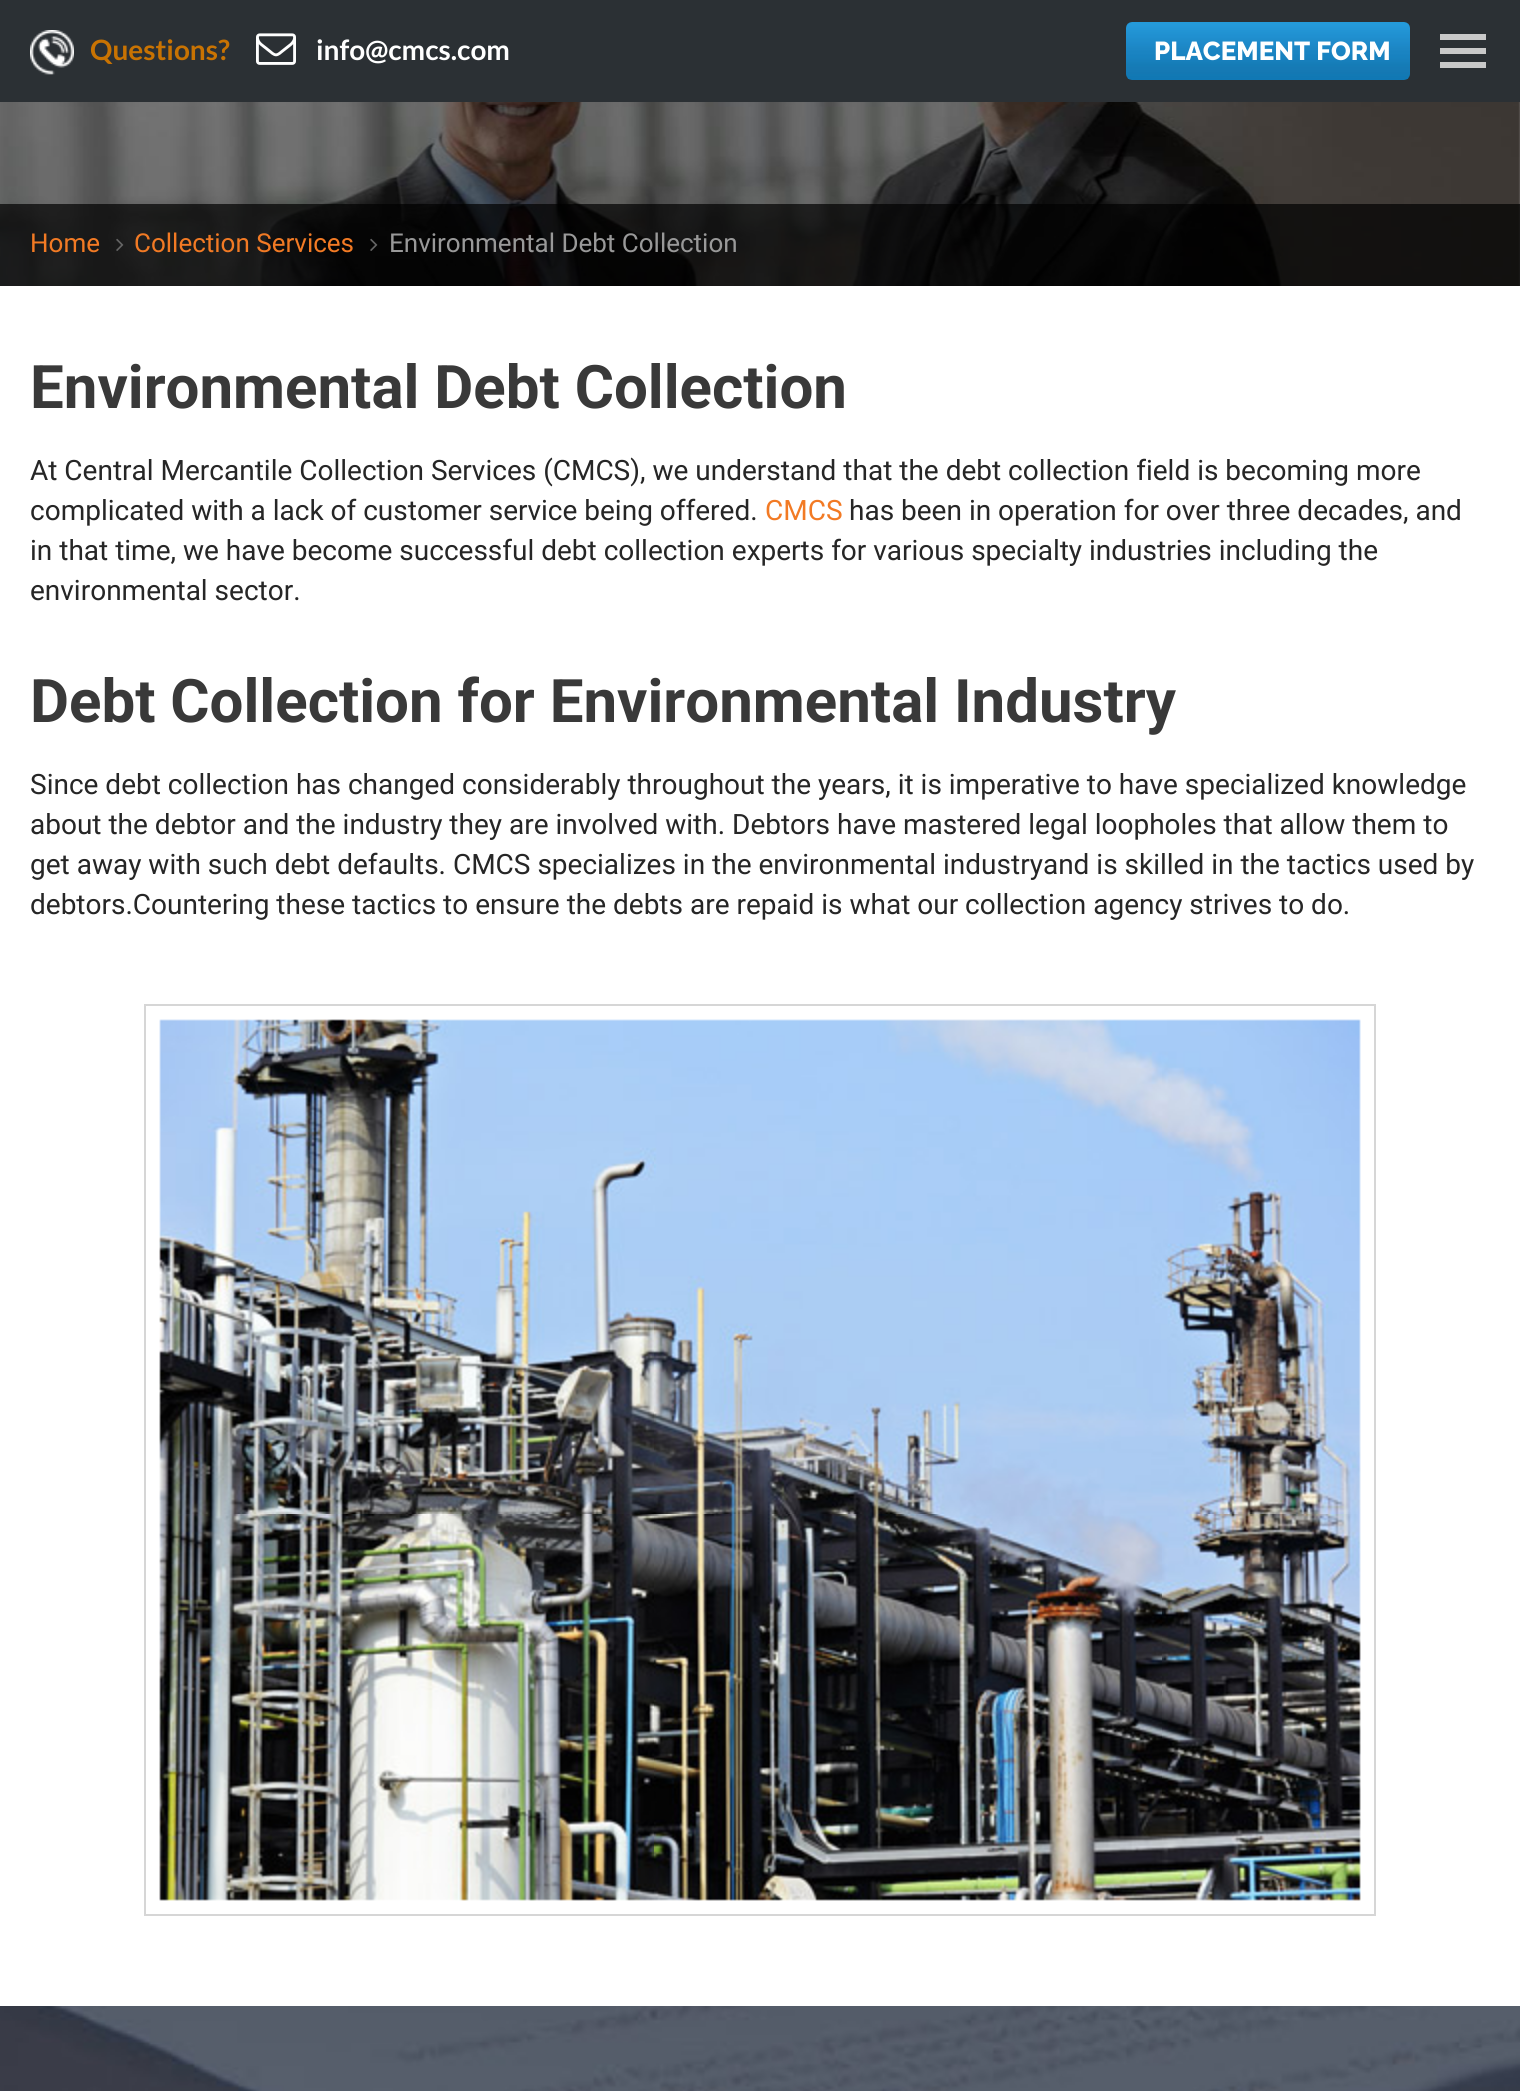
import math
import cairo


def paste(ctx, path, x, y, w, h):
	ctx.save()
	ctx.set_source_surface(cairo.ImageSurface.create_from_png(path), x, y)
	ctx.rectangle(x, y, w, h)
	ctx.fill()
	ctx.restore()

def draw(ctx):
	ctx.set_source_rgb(1, 1, 1)
	ctx.paint()
	ctx.set_source_rgb(0.169, 0.188, 0.204)
	ctx.rectangle(0, 0, 1520, 102)
	ctx.fill()
	paste(ctx, 'media/1.png', 30, 30, 44, 45)
	ctx.select_font_face('Lato', cairo.FONT_SLANT_NORMAL, cairo.FONT_WEIGHT_BOLD)
	ctx.set_font_size(28)
	ctx.set_source_rgb(0.788, 0.451, 0.008)
	ctx.move_to(90, 60)
	ctx.show_text('Questions?')
	paste(ctx, 'media/2.png', 256, 33, 40, 32)
	ctx.set_source_rgb(1, 1, 1)
	ctx.move_to(316, 60)
	ctx.show_text('info@cmcs.com')
	paste(ctx, 'media/3.png', 1126, 22, 284, 58)
	ctx.select_font_face('Raleway ExtraBold')
	ctx.set_font_size(26)
	ctx.move_to(1154, 60)
	ctx.show_text('PLACEMENT FORM')
	ctx.set_source_rgb(0.788, 0.788, 0.788)
	ctx.rectangle(1440, 48, 46, 6)
	ctx.rectangle(1440, 34, 46, 6)
	ctx.rectangle(1440, 62, 46, 6)
	ctx.fill()
	paste(ctx, 'media/4.png', 0, 102, 1520, 184)
	ctx.set_source_rgba(0, 0, 0, 0.7)
	ctx.rectangle(0, 204, 1520, 82)
	ctx.fill()
	ctx.select_font_face('Roboto')
	ctx.set_source_rgb(0.949, 0.478, 0.141)
	ctx.move_to(30, 252)
	ctx.show_text('Home')
	paste(ctx, 'media/5.png', 116, 238, 8, 13)
	ctx.move_to(134, 252)
	ctx.show_text('Collection Services')
	paste(ctx, 'media/6.png', 370, 238, 8, 13)
	ctx.set_source_rgb(0.6, 0.6, 0.6)
	ctx.move_to(389, 252)
	ctx.show_text('Environmental Debt Collection')
	ctx.select_font_face('Roboto', cairo.FONT_SLANT_NORMAL, cairo.FONT_WEIGHT_BOLD)
	ctx.set_font_size(60)
	ctx.set_source_rgb(0.224, 0.224, 0.224)
	ctx.move_to(30, 408)
	ctx.show_text('Environmental Debt Collection')
	ctx.select_font_face('Roboto')
	ctx.set_font_size(28)
	ctx.set_source_rgb(0.149, 0.149, 0.149)
	ctx.move_to(30, 480)
	ctx.show_text('At Central Mercantile Collection Services (CMCS), we understand that the debt collection field is becoming more')
	ctx.move_to(30, 520)
	ctx.show_text('complicated with a lack of customer service being offered.')
	ctx.set_source_rgb(0.949, 0.478, 0.141)
	ctx.move_to(765, 520)
	ctx.show_text('CMCS')
	ctx.set_source_rgb(0.149, 0.149, 0.149)
	for x, y, s in [
		(849, 520, 'has been in operation for over three decades, and'),
		(30, 560, 'in that time, we have become successful debt collection experts for various specialty industries including the'),
		(30, 600, 'environmental sector.'),
	]:
		ctx.move_to(x, y)
		ctx.show_text(s)
	ctx.select_font_face('Roboto', cairo.FONT_SLANT_NORMAL, cairo.FONT_WEIGHT_BOLD)
	ctx.set_font_size(60)
	ctx.set_source_rgb(0.224, 0.224, 0.224)
	ctx.move_to(30, 722)
	ctx.show_text('Debt Collection for Environmental Industry')
	ctx.select_font_face('Roboto')
	ctx.set_font_size(28)
	ctx.set_source_rgb(0.149, 0.149, 0.149)
	for x, y, s in [
		(30, 794, 'Since debt collection has changed considerably throughout the years, it is imperative to have specialized knowledge'),
		(30, 834, 'about the debtor and the industry they are involved with. Debtors have mastered legal loopholes that allow them to'),
		(30, 874, 'get away with such debt defaults. CMCS specializes in the environmental industryand is skilled in the tactics used by'),
		(30, 914, 'debtors.Countering these tactics to ensure the debts are repaid is what our collection agency strives to do.'),
	]:
		ctx.move_to(x, y)
		ctx.show_text(s)
	ctx.rectangle(145, 1005, 1230, 910)
	ctx.set_source_rgb(0.839, 0.839, 0.839)
	ctx.stroke()
	paste(ctx, 'media/7.png', 159, 1019, 1202, 882)
	paste(ctx, 'media/8.png', 0, 2006, 1520, 85)


surface = cairo.ImageSurface(cairo.FORMAT_RGB24, 1520, 2091)
ctx = cairo.Context(surface)
options = cairo.FontOptions()
options.set_hint_metrics(cairo.HINT_METRICS_OFF)
options.set_hint_style(cairo.HINT_STYLE_NONE)
ctx.set_font_options(options)
ctx.set_miter_limit(4)
draw(ctx)
surface.write_to_png('image.png')
